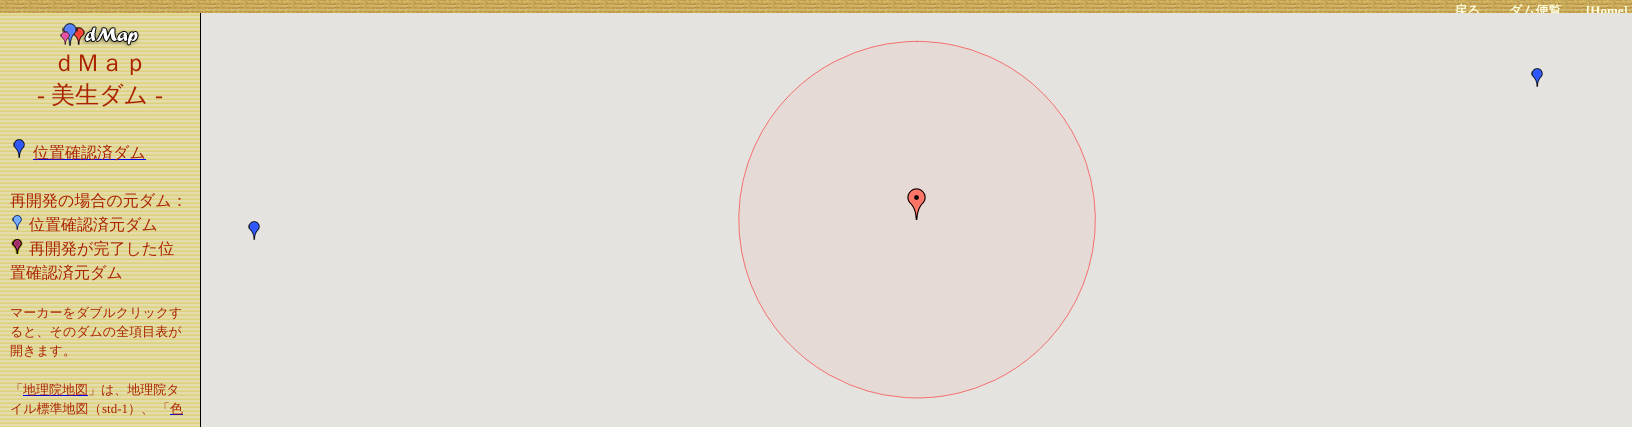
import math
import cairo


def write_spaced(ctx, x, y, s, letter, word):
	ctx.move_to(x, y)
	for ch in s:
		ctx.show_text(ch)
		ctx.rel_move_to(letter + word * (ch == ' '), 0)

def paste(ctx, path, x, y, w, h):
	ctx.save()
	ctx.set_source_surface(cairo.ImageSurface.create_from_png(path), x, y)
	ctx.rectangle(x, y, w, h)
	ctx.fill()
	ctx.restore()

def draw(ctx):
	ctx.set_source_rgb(1, 1, 1)
	ctx.paint()
	paste(ctx, 'media/1.png', 0, 13, 200, 414)
	paste(ctx, 'media/2.png', 0, 0, 1632, 13)
	ctx.select_font_face('WenQuanYi Zen Hei', cairo.FONT_SLANT_NORMAL, cairo.FONT_WEIGHT_BOLD)
	ctx.set_font_size(13)
	ctx.set_source_rgb(1, 1, 0.878)
	ctx.move_to(1454, 15)
	ctx.show_text('戻る')
	ctx.move_to(1509, 15)
	ctx.show_text('ダム便覧')
	ctx.select_font_face('Liberation Serif', cairo.FONT_SLANT_NORMAL, cairo.FONT_WEIGHT_BOLD)
	ctx.move_to(1586, 15)
	ctx.show_text('[Home]')
	paste(ctx, 'media/3.png', 60, 23, 80, 24)
	ctx.select_font_face('WenQuanYi Zen Hei Medium')
	ctx.set_font_size(24)
	ctx.set_source_rgb(0.667, 0.133, 0)
	ctx.move_to(52, 71)
	ctx.show_text('ｄＭａｐ')
	ctx.select_font_face('Liberation Serif')
	ctx.move_to(37, 103)
	ctx.show_text('-')
	ctx.select_font_face('WenQuanYi Zen Hei Medium')
	ctx.move_to(51, 103)
	ctx.show_text('美生ダム')
	ctx.select_font_face('Liberation Serif')
	ctx.move_to(155, 103)
	ctx.show_text('-')
	paste(ctx, 'media/4.png', 13, 139, 12, 19)
	ctx.set_source_rgb(0, 0, 0.933)
	ctx.rectangle(33, 159, 113, 1)
	ctx.fill()
	ctx.select_font_face('WenQuanYi Zen Hei Medium')
	ctx.set_font_size(16)
	ctx.set_source_rgb(0.667, 0.133, 0)
	ctx.move_to(33, 158)
	ctx.show_text('位置確認済ダム')
	ctx.move_to(10, 206)
	ctx.show_text('再開発の場合の元ダム：')
	paste(ctx, 'media/5.png', 12, 215, 10, 15)
	ctx.move_to(29, 230)
	ctx.show_text('位置確認済元ダム')
	paste(ctx, 'media/6.png', 11, 239, 12, 15)
	ctx.move_to(29, 254)
	ctx.show_text('再開発が完了した位')
	ctx.move_to(10, 278)
	ctx.show_text('置確認済元ダム')
	ctx.set_font_size(13)
	for x, y, s in [
		(10, 317, 'マーカーをダブルクリックす'),
		(10, 336, 'ると、そのダムの全項目表が'),
		(10, 355, '開きます。'),
		(10, 394, '「'),
	]:
		ctx.move_to(x, y)
		ctx.show_text(s)
	ctx.set_source_rgb(0, 0, 0.933)
	ctx.rectangle(23, 395, 65, 1)
	ctx.fill()
	ctx.set_source_rgb(0.667, 0.133, 0)
	ctx.move_to(23, 394)
	ctx.show_text('地理院地図」は、地理院タ')
	ctx.move_to(10, 413)
	ctx.show_text('イル標準地図（')
	ctx.select_font_face('Liberation Serif')
	ctx.move_to(102, 413)
	ctx.show_text('std-1')
	ctx.select_font_face('WenQuanYi Zen Hei Medium')
	write_spaced(ctx, 128, 413, '）、 「', 0, -1)
	ctx.set_source_rgb(0, 0, 0.933)
	ctx.rectangle(170, 414, 13, 1)
	ctx.fill()
	ctx.set_source_rgb(0.667, 0.133, 0)
	ctx.move_to(170, 413)
	ctx.show_text('色')
	ctx.set_source_rgb(0, 0, 0)
	ctx.rectangle(200, 13, 1, 414)
	ctx.fill()
	ctx.set_source_rgb(0.898, 0.89, 0.875)
	ctx.rectangle(201, 13, 1431, 414)
	ctx.fill()
	paste(ctx, 'media/7.png', 738, 168, 8, 42)
	paste(ctx, 'media/8.png', 746, 40, 256, 170)
	paste(ctx, 'media/9.png', 1002, 62, 94, 148)
	paste(ctx, 'media/10.png', 738, 210, 8, 61)
	paste(ctx, 'media/11.png', 746, 210, 256, 189)
	paste(ctx, 'media/12.png', 1002, 210, 94, 167)
	paste(ctx, 'media/13.png', 1531, 68, 12, 19)
	paste(ctx, 'media/14.png', 907, 188, 19, 22)
	paste(ctx, 'media/15.png', 914, 210, 6, 10)
	paste(ctx, 'media/13.png', 248, 221, 12, 19)


surface = cairo.ImageSurface(cairo.FORMAT_RGB24, 1632, 427)
ctx = cairo.Context(surface)
options = cairo.FontOptions()
options.set_hint_metrics(cairo.HINT_METRICS_OFF)
options.set_hint_style(cairo.HINT_STYLE_NONE)
ctx.set_font_options(options)
ctx.set_miter_limit(4)
draw(ctx)
surface.write_to_png('image.png')
